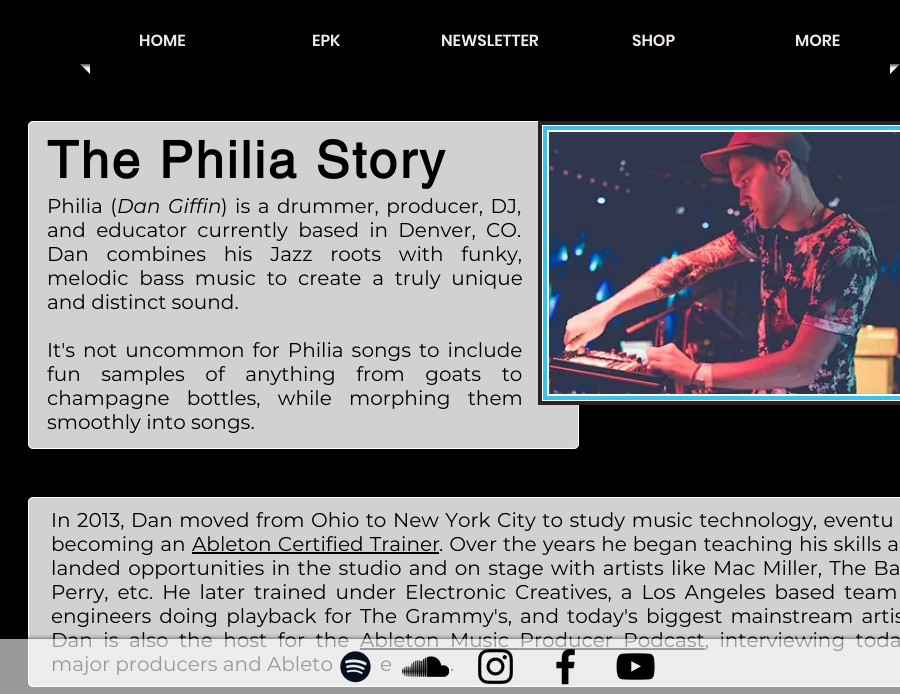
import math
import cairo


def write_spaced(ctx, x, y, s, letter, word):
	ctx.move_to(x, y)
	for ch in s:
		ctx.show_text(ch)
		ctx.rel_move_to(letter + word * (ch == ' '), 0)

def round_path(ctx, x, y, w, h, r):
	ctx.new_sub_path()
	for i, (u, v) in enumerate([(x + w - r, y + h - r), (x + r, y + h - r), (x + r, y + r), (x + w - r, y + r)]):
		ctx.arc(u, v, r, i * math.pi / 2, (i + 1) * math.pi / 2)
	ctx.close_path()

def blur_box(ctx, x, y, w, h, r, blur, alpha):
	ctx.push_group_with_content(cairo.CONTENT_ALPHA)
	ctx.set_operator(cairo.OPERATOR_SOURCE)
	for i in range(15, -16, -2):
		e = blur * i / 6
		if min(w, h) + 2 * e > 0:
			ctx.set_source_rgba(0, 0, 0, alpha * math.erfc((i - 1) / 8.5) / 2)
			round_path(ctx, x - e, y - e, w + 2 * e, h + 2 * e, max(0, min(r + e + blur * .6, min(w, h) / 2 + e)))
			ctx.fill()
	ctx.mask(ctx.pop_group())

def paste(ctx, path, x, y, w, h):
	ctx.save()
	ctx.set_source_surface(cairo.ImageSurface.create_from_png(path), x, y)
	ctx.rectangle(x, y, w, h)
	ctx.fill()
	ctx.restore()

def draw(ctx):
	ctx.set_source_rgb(0, 0, 0)
	ctx.paint()
	ctx.set_source_rgb(1, 1, 1)
	ctx.new_path()
	ctx.move_to(80, 64)
	ctx.line_to(90, 64)
	ctx.line_to(90, 74)
	ctx.close_path()
	ctx.fill()
	ctx.new_path()
	ctx.move_to(890, 64)
	ctx.line_to(900, 64)
	ctx.line_to(890, 74)
	ctx.close_path()
	ctx.fill()
	ctx.save()
	ctx.set_fill_rule(cairo.FILL_RULE_EVEN_ODD)
	ctx.new_path()
	ctx.move_to(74, 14)
	ctx.line_to(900, 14)
	ctx.line_to(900, 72)
	ctx.line_to(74, 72)
	ctx.close_path()
	ctx.move_to(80, 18)
	ctx.line_to(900, 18)
	ctx.line_to(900, 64)
	ctx.line_to(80, 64)
	ctx.close_path()
	ctx.clip()
	ctx.set_source_rgb(0, 0, 0)
	blur_box(ctx, 80, 20, 820, 46, 0, 1.5, 0.7)
	ctx.restore()
	ctx.select_font_face('Poppins SemiBold')
	ctx.set_font_size(16)
	ctx.set_source_rgb(0.941, 0.906, 0.937)
	for x, y, s in [
		(139, 46, 'HOME'),
		(312, 46, 'EPK'),
		(441, 46, 'NEWSLETTER'),
		(632, 46, 'SHOP'),
		(795, 46, 'MORE'),
	]:
		ctx.move_to(x, y)
		ctx.show_text(s)
	ctx.set_source_rgb(0.82, 0.82, 0.82)
	round_path(ctx, 28.5, 121.5, 550, 327, 4.5)
	ctx.fill_preserve()
	ctx.set_source_rgb(1, 1, 1)
	ctx.set_line_width(1)
	ctx.stroke()
	ctx.select_font_face('helvetica', cairo.FONT_SLANT_NORMAL, cairo.FONT_WEIGHT_BOLD)
	ctx.set_font_size(51)
	ctx.set_source_rgb(0, 0, 0)
	write_spaced(ctx, 47, 178, 'The Philia Story', 2.5, 0)
	ctx.select_font_face('Montserrat')
	ctx.set_font_size(20)
	write_spaced(ctx, 47, 213, 'Philia (', 0, 2.25)
	ctx.select_font_face('Montserrat', cairo.FONT_SLANT_ITALIC)
	write_spaced(ctx, 117, 213, 'Dan Giffin', 0, 2.25)
	ctx.select_font_face('Montserrat')
	write_spaced(ctx, 221, 213, ') is a drummer, producer, DJ,', 0, 2.25)
	write_spaced(ctx, 47, 237, 'and educator currently based in Denver, CO.', 0, 5)
	write_spaced(ctx, 47, 261, 'Dan combines his Jazz roots with funky,', 0, 12.5)
	write_spaced(ctx, 47, 285, 'melodic bass music to create a truly unique', 0, 5.5)
	ctx.move_to(47, 309)
	ctx.show_text('and distinct sound.')
	write_spaced(ctx, 47, 357, 'It\'s not uncommon for Philia songs to include', 0, 2.75)
	write_spaced(ctx, 47, 381, 'fun samples of anything from goats to', 0, 15.25)
	write_spaced(ctx, 47, 405, 'champagne bottles, while morphing them', 0, 12)
	ctx.move_to(47, 429)
	ctx.show_text('smoothly into songs.')
	ctx.set_source_rgb(1, 1, 1)
	ctx.rectangle(540, 123, 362, 280)
	ctx.fill_preserve()
	ctx.set_source_rgb(0.169, 0.137, 0.133)
	ctx.set_line_width(4)
	ctx.stroke()
	paste(ctx, 'media/1.png', 549, 132, 351, 262)
	ctx.rectangle(545, 128, 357, 270)
	ctx.set_source_rgb(0.227, 0.761, 0.914)
	ctx.stroke()
	ctx.set_source_rgb(0.82, 0.82, 0.82)
	round_path(ctx, 28.5, 497.5, 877, 189, 4.5)
	ctx.fill_preserve()
	ctx.set_source_rgb(1, 1, 1)
	ctx.set_line_width(1)
	ctx.stroke()
	ctx.set_source_rgb(0, 0, 0)
	write_spaced(ctx, 51, 527, 'In 2013, Dan moved from Ohio to New York City to study music technology, eventu', 0, 1.25)
	write_spaced(ctx, 51, 551, 'becoming an', 0, 0.75)
	write_spaced(ctx, 192, 551, 'Ableton Certified Trainer', 0, 1)
	write_spaced(ctx, 439, 551, '. Over the years he began teaching his skills a', 0, 0.75)
	ctx.rectangle(192, 552, 247, 2)
	ctx.fill()
	write_spaced(ctx, 51, 575, 'landed opportunities in the studio and on stage with artists like Mac Miller, The Ba', 0, 2)
	write_spaced(ctx, 51, 599, 'Perry, etc. He later trained under Electronic Creatives, a Los Angeles based team', 0, 3.75)
	write_spaced(ctx, 51, 623, 'engineers doing playback for The Grammy\'s, and today\'s biggest mainstream artis', 0, 2.9)
	write_spaced(ctx, 51, 647, 'Dan is also the host for the', 0, 5.25)
	ctx.rectangle(360, 648, 345, 2)
	ctx.fill()
	write_spaced(ctx, 360, 647, 'Ableton Music Producer Podcast, interviewing toda', 0, 5.25)
	for x, y, s in [
		(51, 671, 'major producers and Ableto'),
		(380, 671, 'e'),
		(450, 671, '.'),
	]:
		ctx.move_to(x, y)
		ctx.show_text(s)
	ctx.save()
	ctx.rectangle(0, 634, 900, 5)
	ctx.clip()
	ctx.set_source_rgb(0, 0, 0)
	blur_box(ctx, 0, 639, 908, 55, 0, 2.5, 0.7)
	ctx.restore()
	ctx.set_source_rgba(1, 1, 1, 0.6)
	ctx.rectangle(0, 639, 900, 55)
	ctx.fill()
	paste(ctx, 'media/2.png', 340, 651, 31, 32)
	paste(ctx, 'media/3.png', 402, 656, 47, 21)
	paste(ctx, 'media/4.png', 478, 649, 35, 35)
	paste(ctx, 'media/5.png', 556, 649, 19, 36)
	paste(ctx, 'media/6.png', 616, 653, 39, 27)


surface = cairo.ImageSurface(cairo.FORMAT_RGB24, 900, 694)
ctx = cairo.Context(surface)
options = cairo.FontOptions()
options.set_hint_metrics(cairo.HINT_METRICS_OFF)
options.set_hint_style(cairo.HINT_STYLE_NONE)
ctx.set_font_options(options)
ctx.set_miter_limit(4)
draw(ctx)
surface.write_to_png('image.png')
